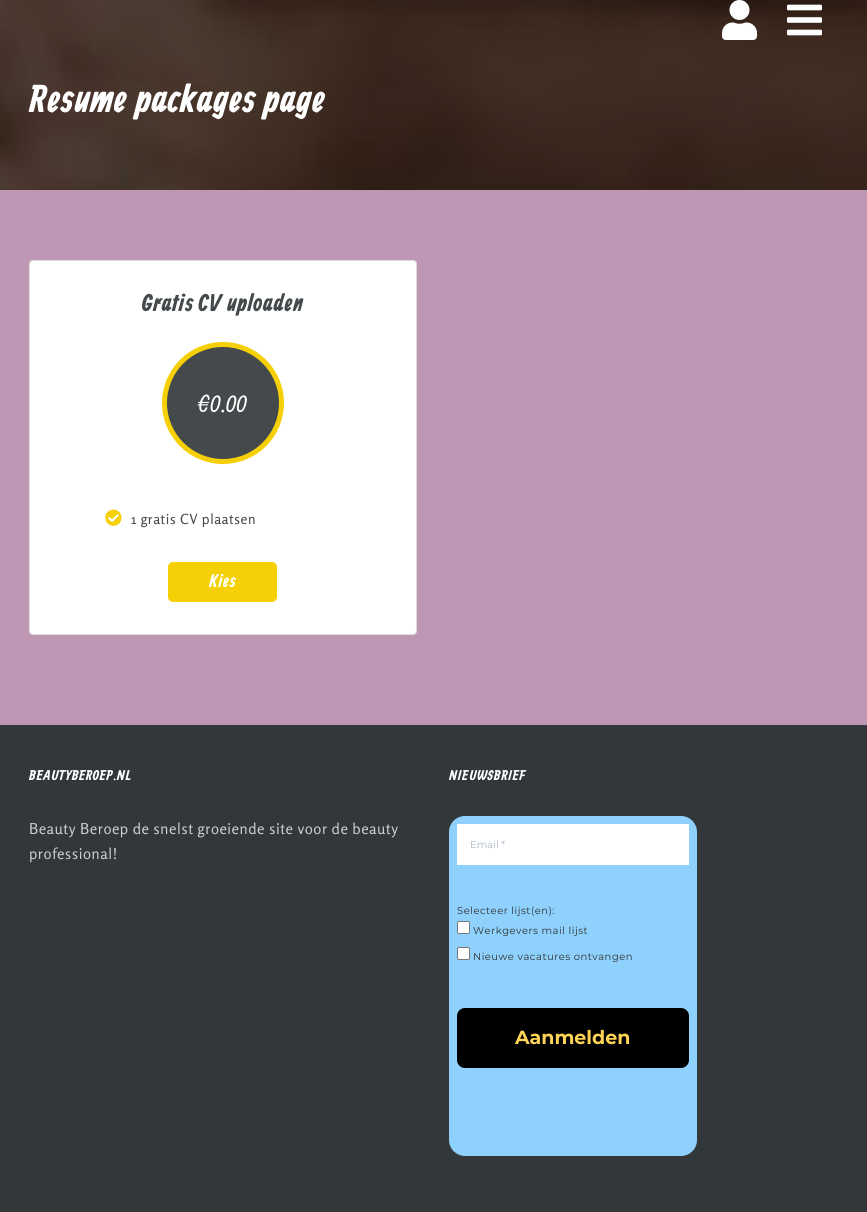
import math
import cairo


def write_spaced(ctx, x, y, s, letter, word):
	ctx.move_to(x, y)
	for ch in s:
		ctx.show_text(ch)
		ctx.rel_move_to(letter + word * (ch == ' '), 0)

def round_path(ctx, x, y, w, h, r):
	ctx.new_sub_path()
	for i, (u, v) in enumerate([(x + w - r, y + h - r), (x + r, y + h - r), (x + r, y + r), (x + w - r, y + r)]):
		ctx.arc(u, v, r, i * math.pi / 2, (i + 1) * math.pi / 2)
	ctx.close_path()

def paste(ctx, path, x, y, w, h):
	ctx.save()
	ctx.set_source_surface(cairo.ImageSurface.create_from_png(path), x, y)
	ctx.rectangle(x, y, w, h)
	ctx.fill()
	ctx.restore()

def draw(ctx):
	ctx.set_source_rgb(0.749, 0.592, 0.706)
	ctx.paint()
	paste(ctx, 'media/3.png', 0, 0, 867, 190)
	paste(ctx, 'media/1.png', 722, 0, 35, 40)
	paste(ctx, 'media/2.png', 787, 4, 35, 32)
	ctx.select_font_face('Allan', cairo.FONT_SLANT_NORMAL, cairo.FONT_WEIGHT_BOLD)
	ctx.set_font_size(38.5)
	ctx.set_source_rgb(1, 1, 1)
	write_spaced(ctx, 29, 112, 'Resume packages page', 0.5, 0)
	round_path(ctx, 29.5, 260.5, 387, 374, 3.5)
	ctx.fill_preserve()
	ctx.set_source_rgb(0.867, 0.867, 0.867)
	ctx.set_line_width(1)
	ctx.stroke()
	ctx.set_font_size(24)
	ctx.set_source_rgb(0.267, 0.286, 0.294)
	write_spaced(ctx, 142, 311, 'Gratis CV uploaden', 0.5, 0)
	ctx.new_path()
	ctx.arc(223, 403, 58.5, 0, 2 * math.pi)
	ctx.fill_preserve()
	ctx.set_source_rgb(0.961, 0.816, 0.024)
	ctx.set_line_width(5)
	ctx.stroke()
	ctx.select_font_face('Allan')
	ctx.set_source_rgb(1, 1, 1)
	write_spaced(ctx, 199, 412, '€0.00', 0.5, 0)
	paste(ctx, 'media/4.png', 105, 509, 17, 17)
	ctx.select_font_face('Rosario')
	ctx.set_font_size(14)
	ctx.set_source_rgb(0.267, 0.286, 0.294)
	write_spaced(ctx, 131, 524, '1 gratis CV plaatsen', 0.5, 0)
	ctx.set_source_rgb(0.961, 0.816, 0.024)
	round_path(ctx, 168, 562, 109, 40, 5)
	ctx.fill()
	ctx.select_font_face('Allan', cairo.FONT_SLANT_NORMAL, cairo.FONT_WEIGHT_BOLD)
	ctx.set_font_size(18)
	ctx.set_source_rgb(1, 1, 1)
	write_spaced(ctx, 209, 587, 'Kies', 0.5, 0)
	ctx.set_source_rgb(0.196, 0.216, 0.227)
	ctx.rectangle(0, 725, 867, 487)
	ctx.fill()
	ctx.set_font_size(14)
	ctx.set_source_rgb(1, 1, 1)
	write_spaced(ctx, 29, 780, 'BEAUTYBEROEP.NL', 0.5, 0)
	ctx.select_font_face('Rosario')
	ctx.set_font_size(15)
	ctx.set_source_rgb(0.8, 0.804, 0.808)
	write_spaced(ctx, 29, 834, 'Beauty Beroep de snelst groeiende site voor de beauty', 0.5, 0)
	write_spaced(ctx, 29, 859, 'professional!', 0.5, 0)
	ctx.select_font_face('Allan', cairo.FONT_SLANT_NORMAL, cairo.FONT_WEIGHT_BOLD)
	ctx.set_font_size(14)
	ctx.set_source_rgb(1, 1, 1)
	write_spaced(ctx, 449, 780, 'NIEUWSBRIEF', 0.5, 0)
	ctx.set_source_rgb(0.557, 0.82, 0.988)
	round_path(ctx, 449, 816, 248, 340, 16)
	ctx.fill()
	ctx.set_source_rgb(1, 1, 1)
	ctx.rectangle(457, 824, 232, 41)
	ctx.fill()
	ctx.select_font_face('Montserrat')
	ctx.set_font_size(10)
	ctx.set_source_rgb(0.671, 0.722, 0.765)
	ctx.move_to(470, 848)
	ctx.show_text('Email *')
	ctx.set_source_rgb(0.192, 0.192, 0.192)
	write_spaced(ctx, 457, 914, 'Selecteer lijst(en):', 0.5, 0)
	ctx.set_source_rgb(1, 1, 1)
	round_path(ctx, 457.5, 921.5, 12, 12, 1.5)
	ctx.fill_preserve()
	ctx.set_source_rgb(0.463, 0.463, 0.463)
	ctx.set_line_width(1)
	ctx.stroke()
	ctx.set_source_rgb(0.192, 0.192, 0.192)
	write_spaced(ctx, 473, 934, 'Werkgevers mail lijst', 0.5, 0)
	ctx.set_source_rgb(1, 1, 1)
	round_path(ctx, 457.5, 947.5, 12, 12, 1.5)
	ctx.fill_preserve()
	ctx.set_source_rgb(0.463, 0.463, 0.463)
	ctx.stroke()
	ctx.set_source_rgb(0.192, 0.192, 0.192)
	write_spaced(ctx, 473, 960, 'Nieuwe vacatures ontvangen', 0.5, 0)
	ctx.set_source_rgb(0, 0, 0)
	round_path(ctx, 457, 1008, 232, 60, 8)
	ctx.fill()
	ctx.select_font_face('Montserrat', cairo.FONT_SLANT_NORMAL, cairo.FONT_WEIGHT_BOLD)
	ctx.set_font_size(19)
	ctx.set_source_rgb(1, 0.831, 0.337)
	ctx.move_to(515, 1044)
	ctx.show_text('Aanmelden')


surface = cairo.ImageSurface(cairo.FORMAT_RGB24, 867, 1212)
ctx = cairo.Context(surface)
options = cairo.FontOptions()
options.set_hint_metrics(cairo.HINT_METRICS_OFF)
options.set_hint_style(cairo.HINT_STYLE_NONE)
ctx.set_font_options(options)
ctx.set_miter_limit(4)
draw(ctx)
surface.write_to_png('image.png')
